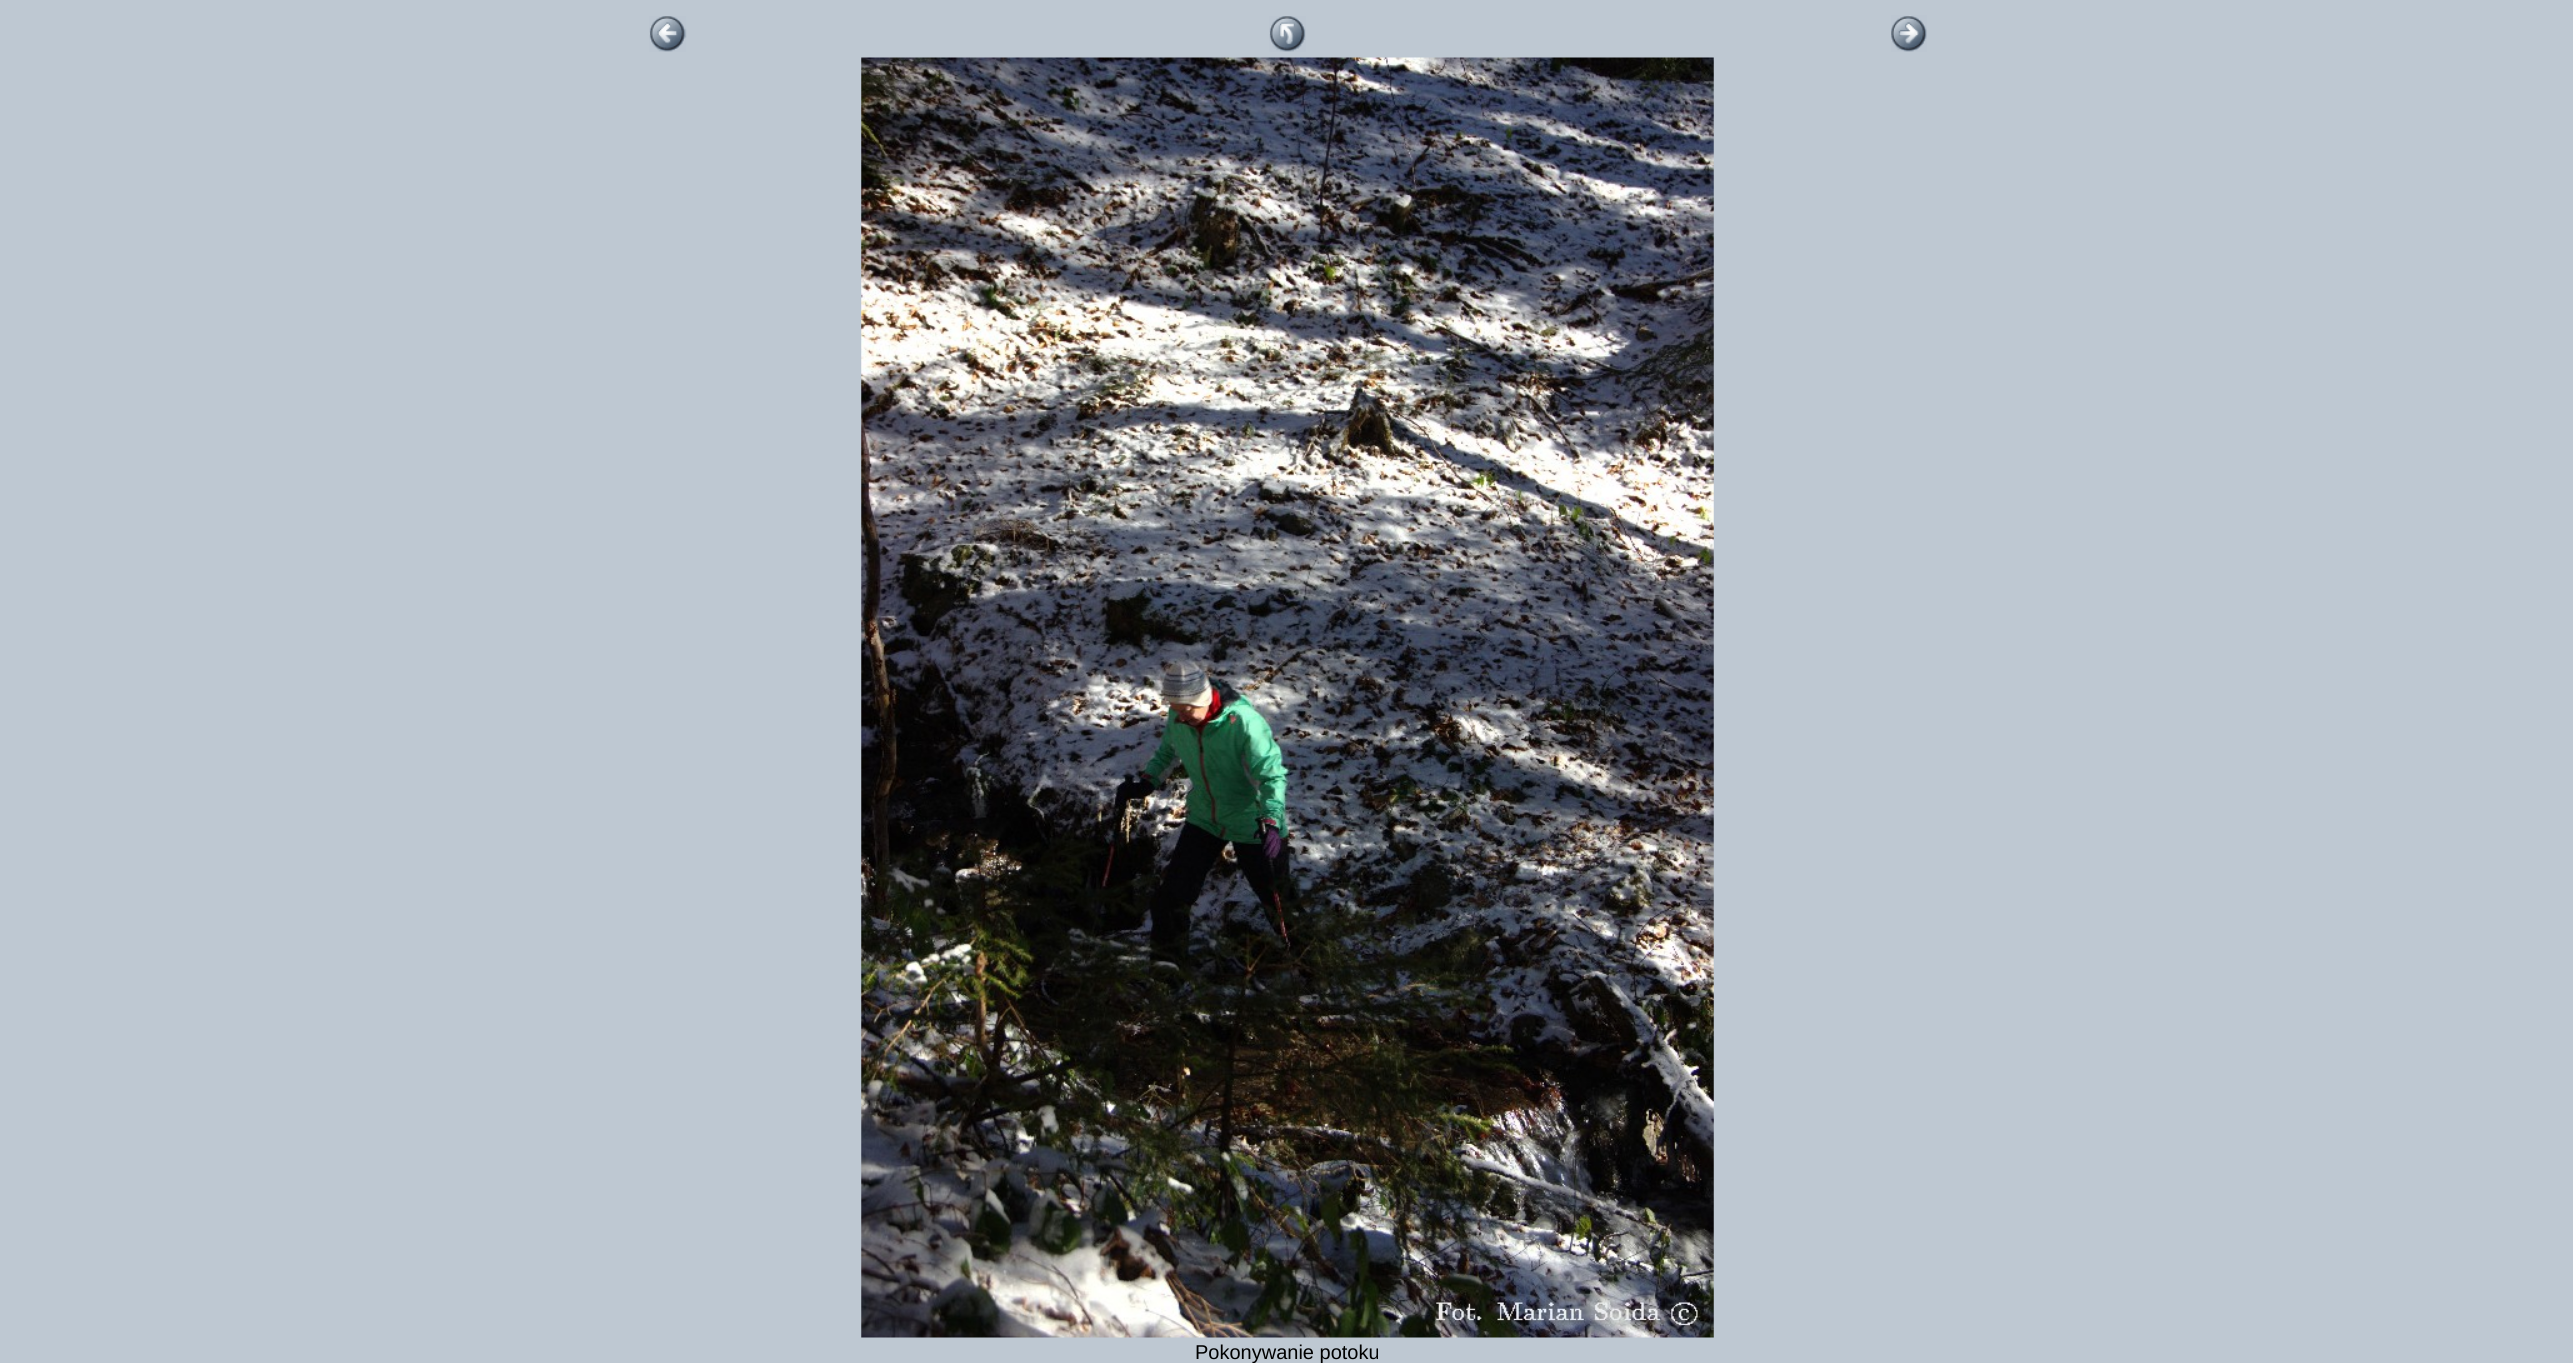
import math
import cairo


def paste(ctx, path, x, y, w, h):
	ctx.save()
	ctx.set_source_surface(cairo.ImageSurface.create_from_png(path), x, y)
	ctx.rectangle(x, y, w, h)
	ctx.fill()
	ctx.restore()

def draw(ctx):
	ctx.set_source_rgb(0.745, 0.784, 0.824)
	ctx.paint()
	paste(ctx, 'media/1.png', 649, 16, 38, 36)
	paste(ctx, 'media/2.png', 1269, 16, 37, 36)
	paste(ctx, 'media/3.png', 1891, 15, 36, 37)
	paste(ctx, 'media/4.png', 861, 57, 853, 1281)
	ctx.select_font_face('Liberation Sans')
	ctx.set_font_size(20)
	ctx.set_source_rgb(0, 0, 0)
	ctx.move_to(1195, 1359)
	ctx.show_text('Pokonywanie potoku')


surface = cairo.ImageSurface(cairo.FORMAT_RGB24, 2573, 1363)
ctx = cairo.Context(surface)
options = cairo.FontOptions()
options.set_hint_metrics(cairo.HINT_METRICS_OFF)
options.set_hint_style(cairo.HINT_STYLE_NONE)
ctx.set_font_options(options)
ctx.set_miter_limit(4)
draw(ctx)
surface.write_to_png('image.png')
